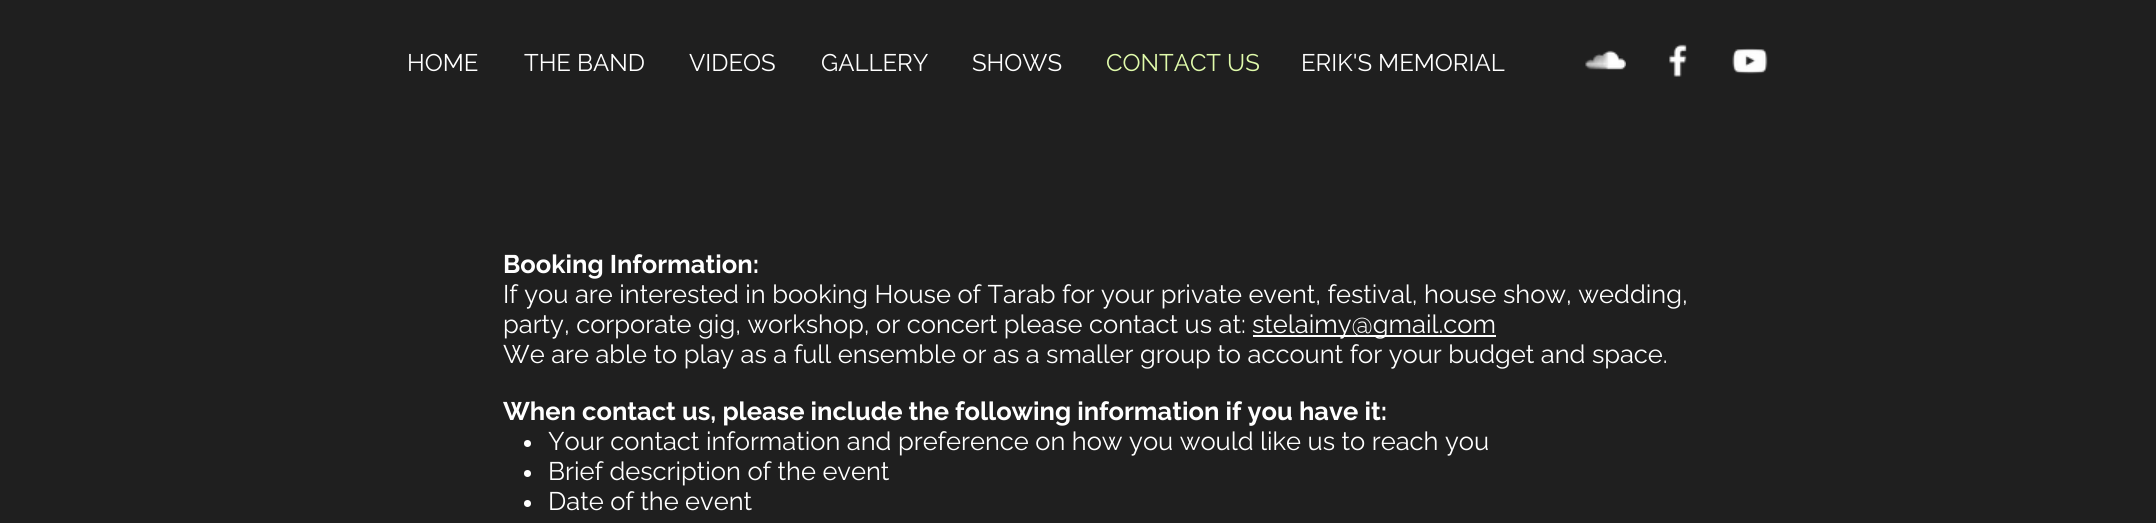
import math
import cairo


def paste(ctx, path, x, y, w, h):
	ctx.save()
	ctx.set_source_surface(cairo.ImageSurface.create_from_png(path), x, y)
	ctx.rectangle(x, y, w, h)
	ctx.fill()
	ctx.restore()

def draw(ctx):
	ctx.set_source_rgb(0.122, 0.122, 0.122)
	ctx.paint()
	ctx.select_font_face('Raleway')
	ctx.set_font_size(24)
	ctx.set_source_rgb(1, 1, 1)
	for x, y, s in [
		(407, 71, 'HOME'),
		(524, 71, 'THE BAND'),
		(689, 71, 'VIDEOS'),
		(821, 71, 'GALLERY'),
		(972, 71, 'SHOWS'),
	]:
		ctx.move_to(x, y)
		ctx.show_text(s)
	ctx.set_source_rgb(0.878, 0.984, 0.671)
	ctx.move_to(1106, 71)
	ctx.show_text('CONTACT US')
	ctx.set_source_rgb(1, 1, 1)
	ctx.move_to(1301, 71)
	ctx.show_text('ERIK\'S MEMORIAL')
	paste(ctx, 'media/1.png', 1585, 50, 41, 20)
	paste(ctx, 'media/2.png', 1669, 44, 18, 33)
	paste(ctx, 'media/3.png', 1732, 48, 36, 26)
	ctx.select_font_face('Raleway', cairo.FONT_SLANT_NORMAL, cairo.FONT_WEIGHT_BOLD)
	ctx.set_font_size(25.5)
	ctx.move_to(503, 273)
	ctx.show_text('Booking Information:')
	ctx.select_font_face('Raleway')
	ctx.move_to(503, 303)
	ctx.show_text('If you are interested in booking House of Tarab for your private event, festival, house show, wedding,')
	ctx.move_to(503, 333)
	ctx.show_text('party, corporate gig, workshop, or concert please contact us at:')
	ctx.rectangle(1253, 335, 243, 2)
	ctx.fill()
	ctx.move_to(1252, 333)
	ctx.show_text('stelaimy@gmail.com')
	ctx.move_to(503, 363)
	ctx.show_text('We are able to play as a full ensemble or as a smaller group to account for your budget and space.')
	ctx.select_font_face('Raleway', cairo.FONT_SLANT_NORMAL, cairo.FONT_WEIGHT_BOLD)
	ctx.move_to(503, 420)
	ctx.show_text('When contact us, please include the following information if you have it:')
	ctx.new_path()
	ctx.arc(527.5, 443.5, 3.5, 0, 2 * math.pi)
	ctx.fill()
	ctx.select_font_face('Raleway')
	ctx.move_to(548, 450)
	ctx.show_text('Your contact information and preference on how you would like us to reach you')
	ctx.new_path()
	ctx.arc(527.5, 473.5, 3.5, 0, 2 * math.pi)
	ctx.fill()
	ctx.move_to(548, 480)
	ctx.show_text('Brief description of the event')
	ctx.new_path()
	ctx.arc(527.5, 503.5, 3.5, 0, 2 * math.pi)
	ctx.fill()
	ctx.move_to(548, 510)
	ctx.show_text('Date of the event')


surface = cairo.ImageSurface(cairo.FORMAT_RGB24, 2156, 523)
ctx = cairo.Context(surface)
options = cairo.FontOptions()
options.set_hint_metrics(cairo.HINT_METRICS_OFF)
options.set_hint_style(cairo.HINT_STYLE_NONE)
ctx.set_font_options(options)
ctx.set_miter_limit(4)
draw(ctx)
surface.write_to_png('image.png')
